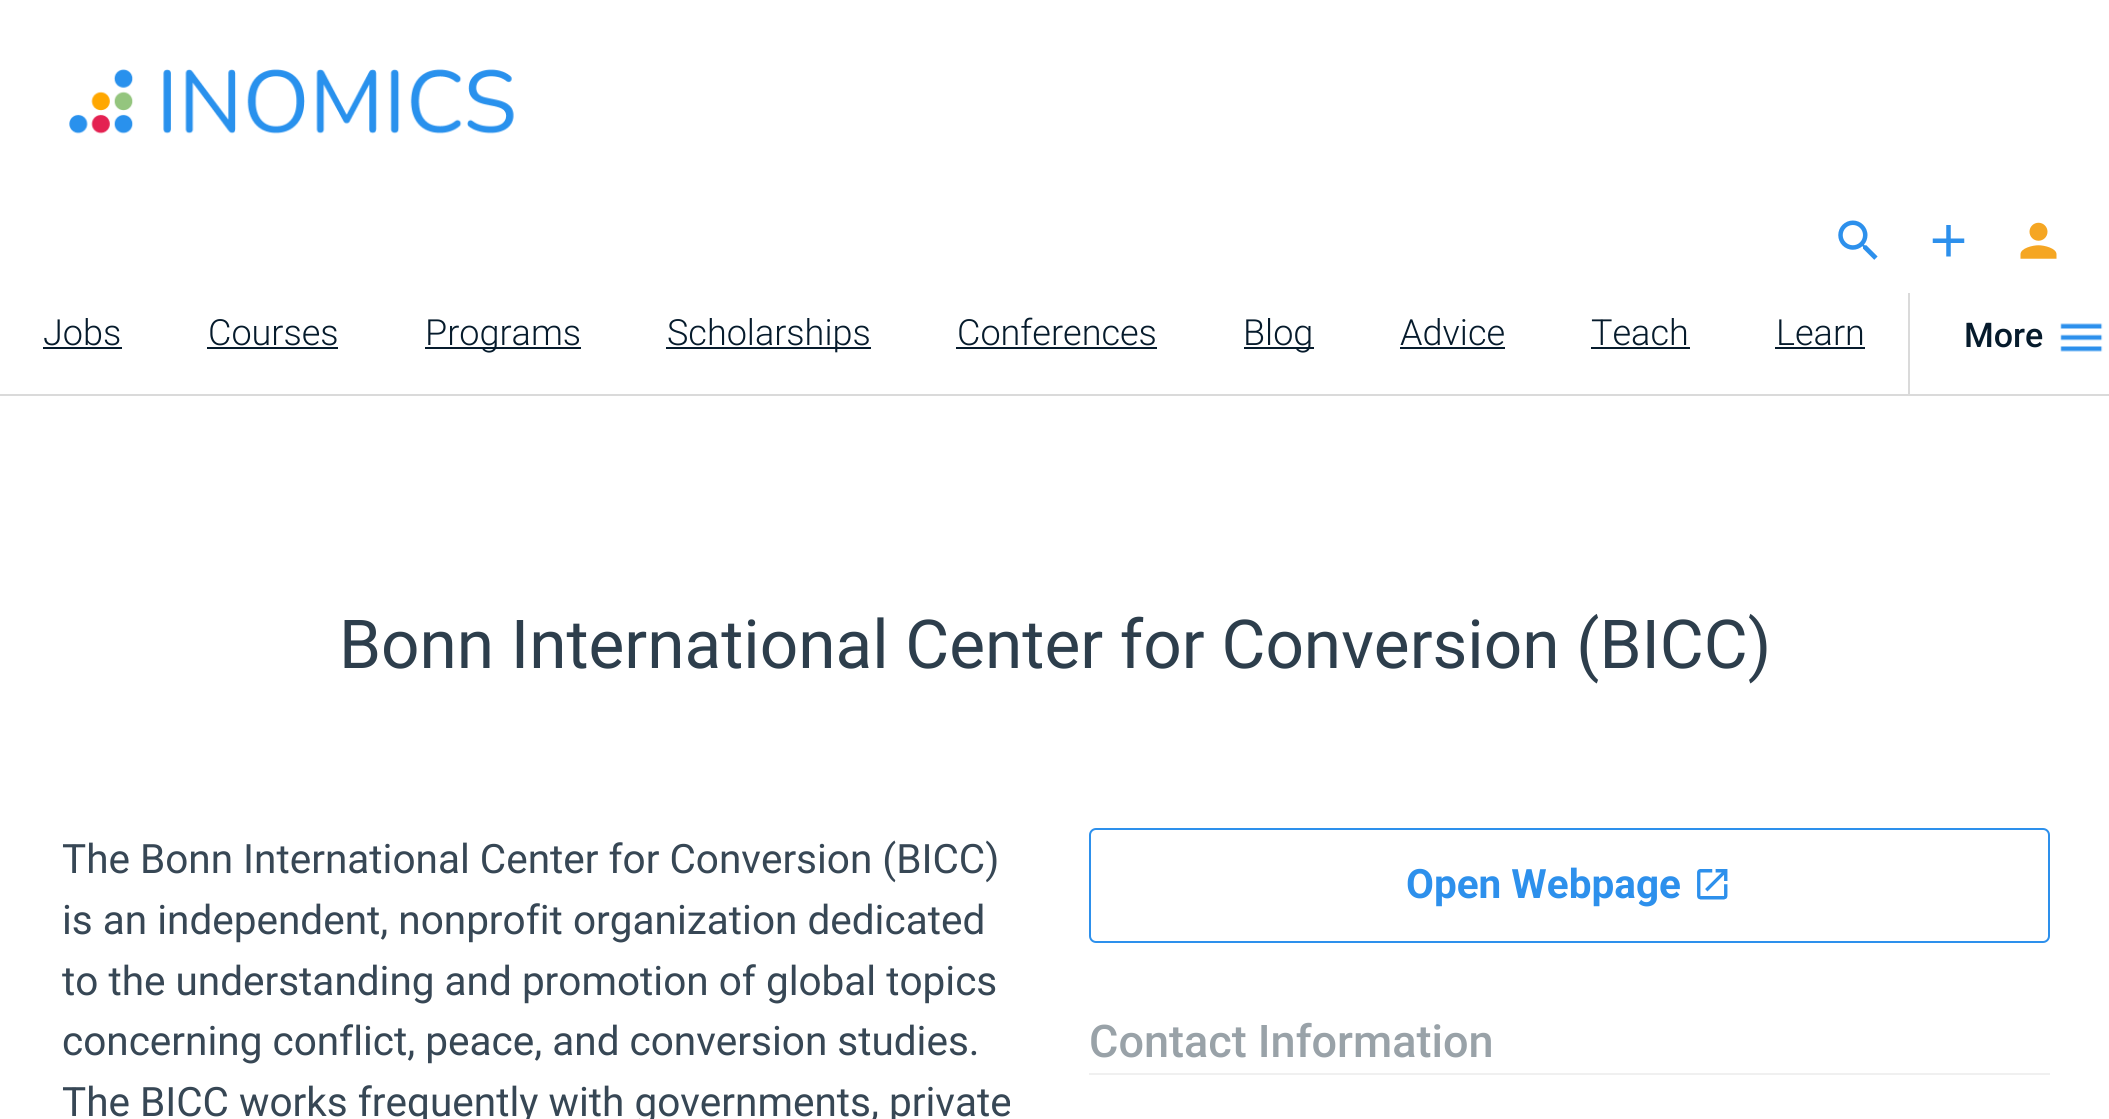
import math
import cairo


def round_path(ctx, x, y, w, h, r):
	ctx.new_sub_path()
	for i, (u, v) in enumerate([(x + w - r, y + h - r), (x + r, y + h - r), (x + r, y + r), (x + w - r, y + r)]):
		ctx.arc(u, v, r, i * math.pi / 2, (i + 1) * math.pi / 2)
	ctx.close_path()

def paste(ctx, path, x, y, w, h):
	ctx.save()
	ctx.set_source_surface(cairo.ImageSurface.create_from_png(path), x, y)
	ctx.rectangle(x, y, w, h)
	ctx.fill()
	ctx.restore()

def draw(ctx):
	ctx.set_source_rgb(1, 1, 1)
	ctx.paint()
	paste(ctx, 'media/1.png', 69, 69, 445, 65)
	paste(ctx, 'media/2.png', 1838, 220, 40, 40)
	paste(ctx, 'media/3.png', 1932, 225, 33, 32)
	paste(ctx, 'media/4.png', 2020, 222, 37, 37)
	ctx.set_source_rgb(0.855, 0.855, 0.855)
	ctx.rectangle(0, 394, 2109, 2)
	ctx.fill()
	ctx.select_font_face('Roboto Light')
	ctx.set_font_size(36)
	ctx.set_source_rgb(0.027, 0.106, 0.173)
	ctx.move_to(43, 345)
	ctx.show_text('Jobs')
	ctx.rectangle(43, 347, 79, 2)
	ctx.fill()
	ctx.move_to(208, 345)
	ctx.show_text('Courses')
	ctx.rectangle(207, 347, 131, 2)
	ctx.fill()
	ctx.rectangle(425, 347, 156, 2)
	ctx.fill()
	ctx.move_to(425, 345)
	ctx.show_text('Programs')
	ctx.rectangle(666, 347, 205, 2)
	ctx.fill()
	ctx.move_to(667, 345)
	ctx.show_text('Scholarships')
	ctx.move_to(957, 345)
	ctx.show_text('Conferences')
	ctx.rectangle(956, 347, 201, 2)
	ctx.fill()
	ctx.rectangle(1244, 347, 70, 2)
	ctx.fill()
	ctx.move_to(1243, 345)
	ctx.show_text('Blog')
	ctx.move_to(1400, 345)
	ctx.show_text('Advice')
	ctx.rectangle(1400, 347, 105, 2)
	ctx.fill()
	ctx.move_to(1591, 345)
	ctx.show_text('Teach')
	ctx.rectangle(1591, 347, 99, 2)
	ctx.fill()
	ctx.move_to(1776, 345)
	ctx.show_text('Learn')
	ctx.rectangle(1775, 347, 90, 2)
	ctx.fill()
	ctx.set_source_rgb(0.855, 0.855, 0.855)
	ctx.rectangle(1908, 293, 2, 101)
	ctx.fill()
	ctx.select_font_face('Roboto Medium')
	ctx.set_font_size(34)
	ctx.set_source_rgb(0.027, 0.106, 0.173)
	ctx.move_to(1964, 347)
	ctx.show_text('More')
	paste(ctx, 'media/5.png', 2060, 323, 43, 29)
	ctx.select_font_face('Roboto')
	ctx.set_font_size(67.5)
	ctx.set_source_rgb(0.176, 0.243, 0.298)
	ctx.move_to(339, 668)
	ctx.show_text('Bonn International Center for Conversion (BICC)')
	ctx.set_font_size(40.5)
	ctx.set_source_rgb(0.216, 0.278, 0.333)
	for x, y, s in [
		(62, 873, 'The Bonn International Center for Conversion (BICC)'),
		(62, 934, 'is an independent, nonprofit organization dedicated'),
		(62, 995, 'to the understanding and promotion of global topics'),
		(62, 1055, 'concerning conflict, peace, and conversion studies.'),
		(62, 1116, 'The BICC works frequently with governments, private'),
	]:
		ctx.move_to(x, y)
		ctx.show_text(s)
	round_path(ctx, 1090, 829, 959, 113, 6)
	ctx.set_source_rgb(0.176, 0.565, 0.925)
	ctx.stroke()
	ctx.select_font_face('Roboto', cairo.FONT_SLANT_NORMAL, cairo.FONT_WEIGHT_BOLD)
	ctx.move_to(1406, 898)
	ctx.show_text('Open Webpage')
	paste(ctx, 'media/6.png', 1697, 869, 31, 31)
	ctx.set_source_rgb(0.941, 0.941, 0.941)
	ctx.rectangle(1089, 1073, 961, 2)
	ctx.fill()
	ctx.select_font_face('Roboto Medium')
	ctx.set_font_size(45)
	ctx.set_source_rgb(0.6, 0.635, 0.659)
	ctx.move_to(1089, 1057)
	ctx.show_text('Contact Information')


surface = cairo.ImageSurface(cairo.FORMAT_RGB24, 2109, 1119)
ctx = cairo.Context(surface)
options = cairo.FontOptions()
options.set_hint_metrics(cairo.HINT_METRICS_OFF)
options.set_hint_style(cairo.HINT_STYLE_NONE)
ctx.set_font_options(options)
ctx.set_miter_limit(4)
draw(ctx)
surface.write_to_png('image.png')
